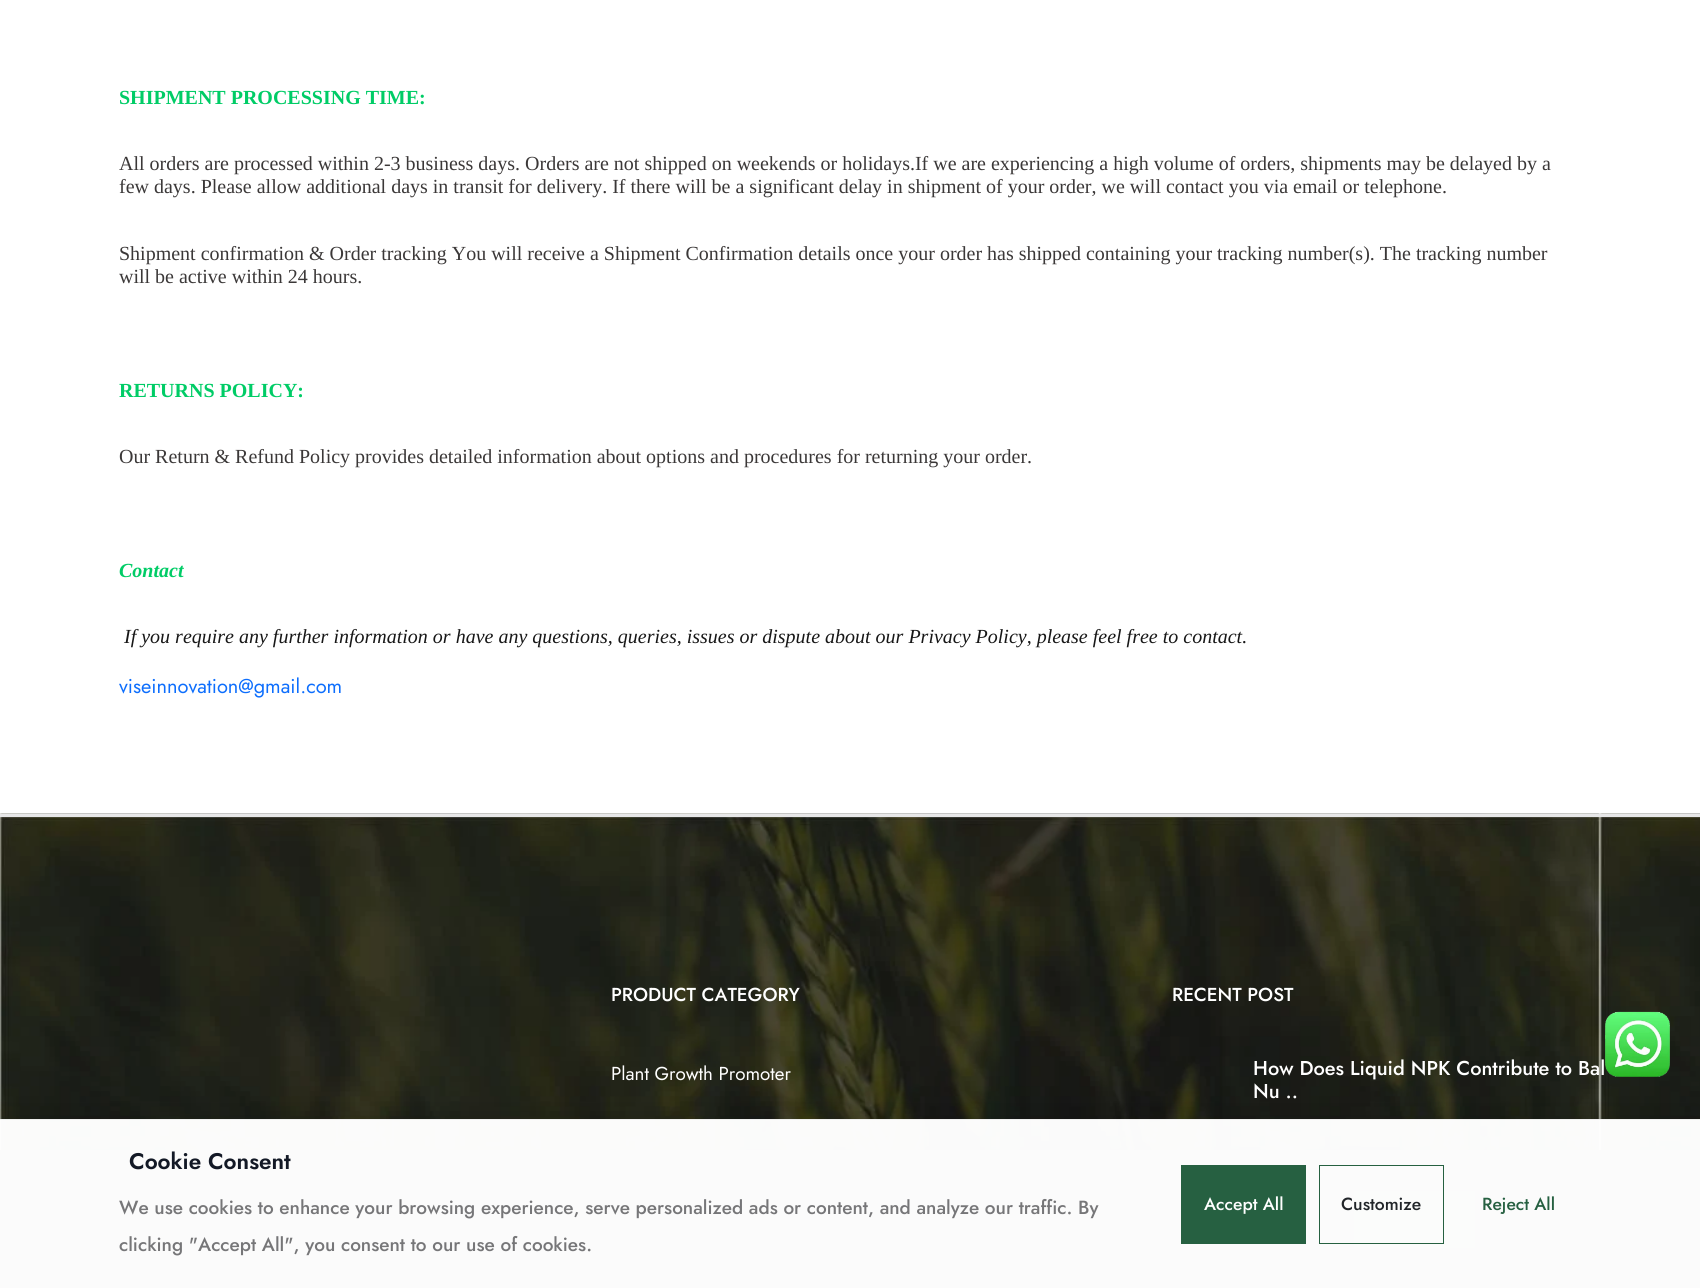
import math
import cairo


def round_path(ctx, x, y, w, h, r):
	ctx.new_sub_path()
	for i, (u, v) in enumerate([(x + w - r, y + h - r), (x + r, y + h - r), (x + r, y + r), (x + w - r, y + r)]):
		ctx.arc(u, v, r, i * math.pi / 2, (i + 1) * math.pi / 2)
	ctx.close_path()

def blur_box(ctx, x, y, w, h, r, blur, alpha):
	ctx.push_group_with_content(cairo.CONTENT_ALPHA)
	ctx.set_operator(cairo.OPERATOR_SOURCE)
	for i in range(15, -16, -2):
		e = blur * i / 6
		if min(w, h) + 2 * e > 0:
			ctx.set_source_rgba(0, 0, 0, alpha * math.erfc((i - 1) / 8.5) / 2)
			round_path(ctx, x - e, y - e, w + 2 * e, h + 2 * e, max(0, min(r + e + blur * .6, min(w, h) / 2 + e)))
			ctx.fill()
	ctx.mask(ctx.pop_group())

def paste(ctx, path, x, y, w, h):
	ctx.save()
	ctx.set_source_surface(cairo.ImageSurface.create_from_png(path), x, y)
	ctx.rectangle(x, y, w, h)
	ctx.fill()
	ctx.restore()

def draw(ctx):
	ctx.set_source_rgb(1, 1, 1)
	ctx.paint()
	ctx.select_font_face('Liberation Serif', cairo.FONT_SLANT_NORMAL, cairo.FONT_WEIGHT_BOLD)
	ctx.set_font_size(20)
	ctx.set_source_rgb(0, 0.8, 0.4)
	ctx.move_to(119, 104)
	ctx.show_text('SHIPMENT PROCESSING TIME:')
	ctx.select_font_face('Liberation Serif')
	ctx.set_source_rgb(0.231, 0.22, 0.22)
	for x, y, s in [
		(119, 170, 'All orders are processed within 2-3 business days. Orders are not shipped on weekends or holidays.If we are experiencing a high volume of orders, shipments may be delayed by a'),
		(119, 193, 'few days. Please allow additional days in transit for delivery. If there will be a significant delay in shipment of your order, we will contact you via email or telephone.'),
		(119, 260, 'Shipment confirmation & Order tracking You will receive a Shipment Confirmation details once your order has shipped containing your tracking number(s). The tracking number'),
		(119, 283, 'will be active within 24 hours.'),
	]:
		ctx.move_to(x, y)
		ctx.show_text(s)
	ctx.select_font_face('Liberation Serif', cairo.FONT_SLANT_NORMAL, cairo.FONT_WEIGHT_BOLD)
	ctx.set_source_rgb(0, 0.8, 0.4)
	ctx.move_to(119, 397)
	ctx.show_text('RETURNS POLICY:')
	ctx.select_font_face('Liberation Serif')
	ctx.set_source_rgb(0.231, 0.22, 0.22)
	ctx.move_to(119, 463)
	ctx.show_text('Our Return & Refund Policy provides detailed information about options and procedures for returning your order.')
	ctx.select_font_face('Liberation Serif', cairo.FONT_SLANT_ITALIC, cairo.FONT_WEIGHT_BOLD)
	ctx.set_source_rgb(0, 0.8, 0.4)
	ctx.move_to(119, 577)
	ctx.show_text('Contact')
	ctx.select_font_face('Liberation Serif', cairo.FONT_SLANT_ITALIC)
	ctx.set_source_rgb(0.09, 0.09, 0.09)
	ctx.move_to(124, 643)
	ctx.show_text('If you require any further information or have any questions, queries, issues or dispute about our Privacy Policy, please feel free to contact.')
	ctx.select_font_face('Jost')
	ctx.set_source_rgb(0.051, 0.431, 0.992)
	ctx.move_to(119, 693)
	ctx.show_text('viseinnovation@gmail.com')
	paste(ctx, 'media/1.png', 0, 813, 1700, 337)
	ctx.set_source_rgb(0.906, 0.906, 0.91)
	ctx.rectangle(0, 814, 1700, 3)
	ctx.fill()
	ctx.select_font_face('Jost Medium')
	ctx.set_font_size(18.75)
	ctx.set_source_rgb(1, 1, 1)
	ctx.move_to(611, 1001)
	ctx.show_text('PRODUCT CATEGORY')
	ctx.select_font_face('Jost')
	ctx.move_to(611, 1080)
	ctx.show_text('Plant Growth Promoter')
	ctx.select_font_face('Jost Medium')
	ctx.move_to(1172, 1001)
	ctx.show_text('RECENT POST')
	ctx.set_font_size(20)
	ctx.move_to(1253, 1075)
	ctx.show_text('How Does Liquid NPK Contribute to Bal')
	ctx.move_to(1253, 1098)
	ctx.show_text('Nu ..')
	paste(ctx, 'media/2.png', 1605, 1011, 65, 66)
	ctx.set_source_rgb(0, 0, 0)
	blur_box(ctx, 0, 1149, 1700, 139, 0, 2, 0.1)
	ctx.set_source_rgb(0.231, 0.251, 0.271)
	ctx.rectangle(0, 1150, 1700, 138)
	ctx.fill()
	ctx.set_source_rgb(0.149, 0.376, 0.255)
	ctx.rectangle(1354, 1191, 121, 57)
	ctx.fill()
	ctx.save()
	ctx.rectangle(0, 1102, 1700, 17)
	ctx.clip()
	ctx.set_source_rgb(0, 0, 0)
	blur_box(ctx, 0, 1113, 1700, 170, 0, 12.5, 0.1)
	ctx.restore()
	ctx.set_source_rgba(1, 1, 1, 0.98)
	ctx.rectangle(0, 1119, 1700, 169)
	ctx.fill()
	ctx.set_source_rgba(0, 0, 0, 0.05)
	ctx.rectangle(0, 1119, 1700, 1)
	ctx.fill()
	ctx.select_font_face('Jost SemiBold')
	ctx.set_font_size(22.5)
	ctx.set_source_rgb(0.078, 0.098, 0.149)
	ctx.move_to(129, 1169)
	ctx.show_text('Cookie Consent')
	ctx.select_font_face('Jost Medium')
	ctx.set_font_size(19)
	ctx.set_source_rgb(0.463, 0.463, 0.471)
	ctx.move_to(119, 1214)
	ctx.show_text('We use cookies to enhance your browsing experience, serve personalized ads or content, and analyze our traffic. By')
	ctx.move_to(119, 1251)
	ctx.show_text('clicking "Accept All", you consent to our use of cookies.')
	ctx.set_source_rgb(0.149, 0.376, 0.255)
	ctx.rectangle(1181, 1165, 125, 79)
	ctx.fill()
	ctx.set_font_size(17.5)
	ctx.set_source_rgb(1, 1, 1)
	ctx.move_to(1204, 1210)
	ctx.show_text('Accept All')
	ctx.rectangle(1319.5, 1165.5, 124, 78)
	ctx.set_source_rgb(0.149, 0.376, 0.255)
	ctx.set_line_width(1)
	ctx.stroke()
	ctx.set_source_rgb(0.129, 0.145, 0.161)
	ctx.move_to(1341, 1210)
	ctx.show_text('Customize')
	ctx.set_source_rgb(0.149, 0.376, 0.255)
	ctx.move_to(1482, 1210)
	ctx.show_text('Reject All')


surface = cairo.ImageSurface(cairo.FORMAT_RGB24, 1700, 1288)
ctx = cairo.Context(surface)
options = cairo.FontOptions()
options.set_hint_metrics(cairo.HINT_METRICS_OFF)
options.set_hint_style(cairo.HINT_STYLE_NONE)
ctx.set_font_options(options)
ctx.set_miter_limit(4)
draw(ctx)
surface.write_to_png('image.png')
